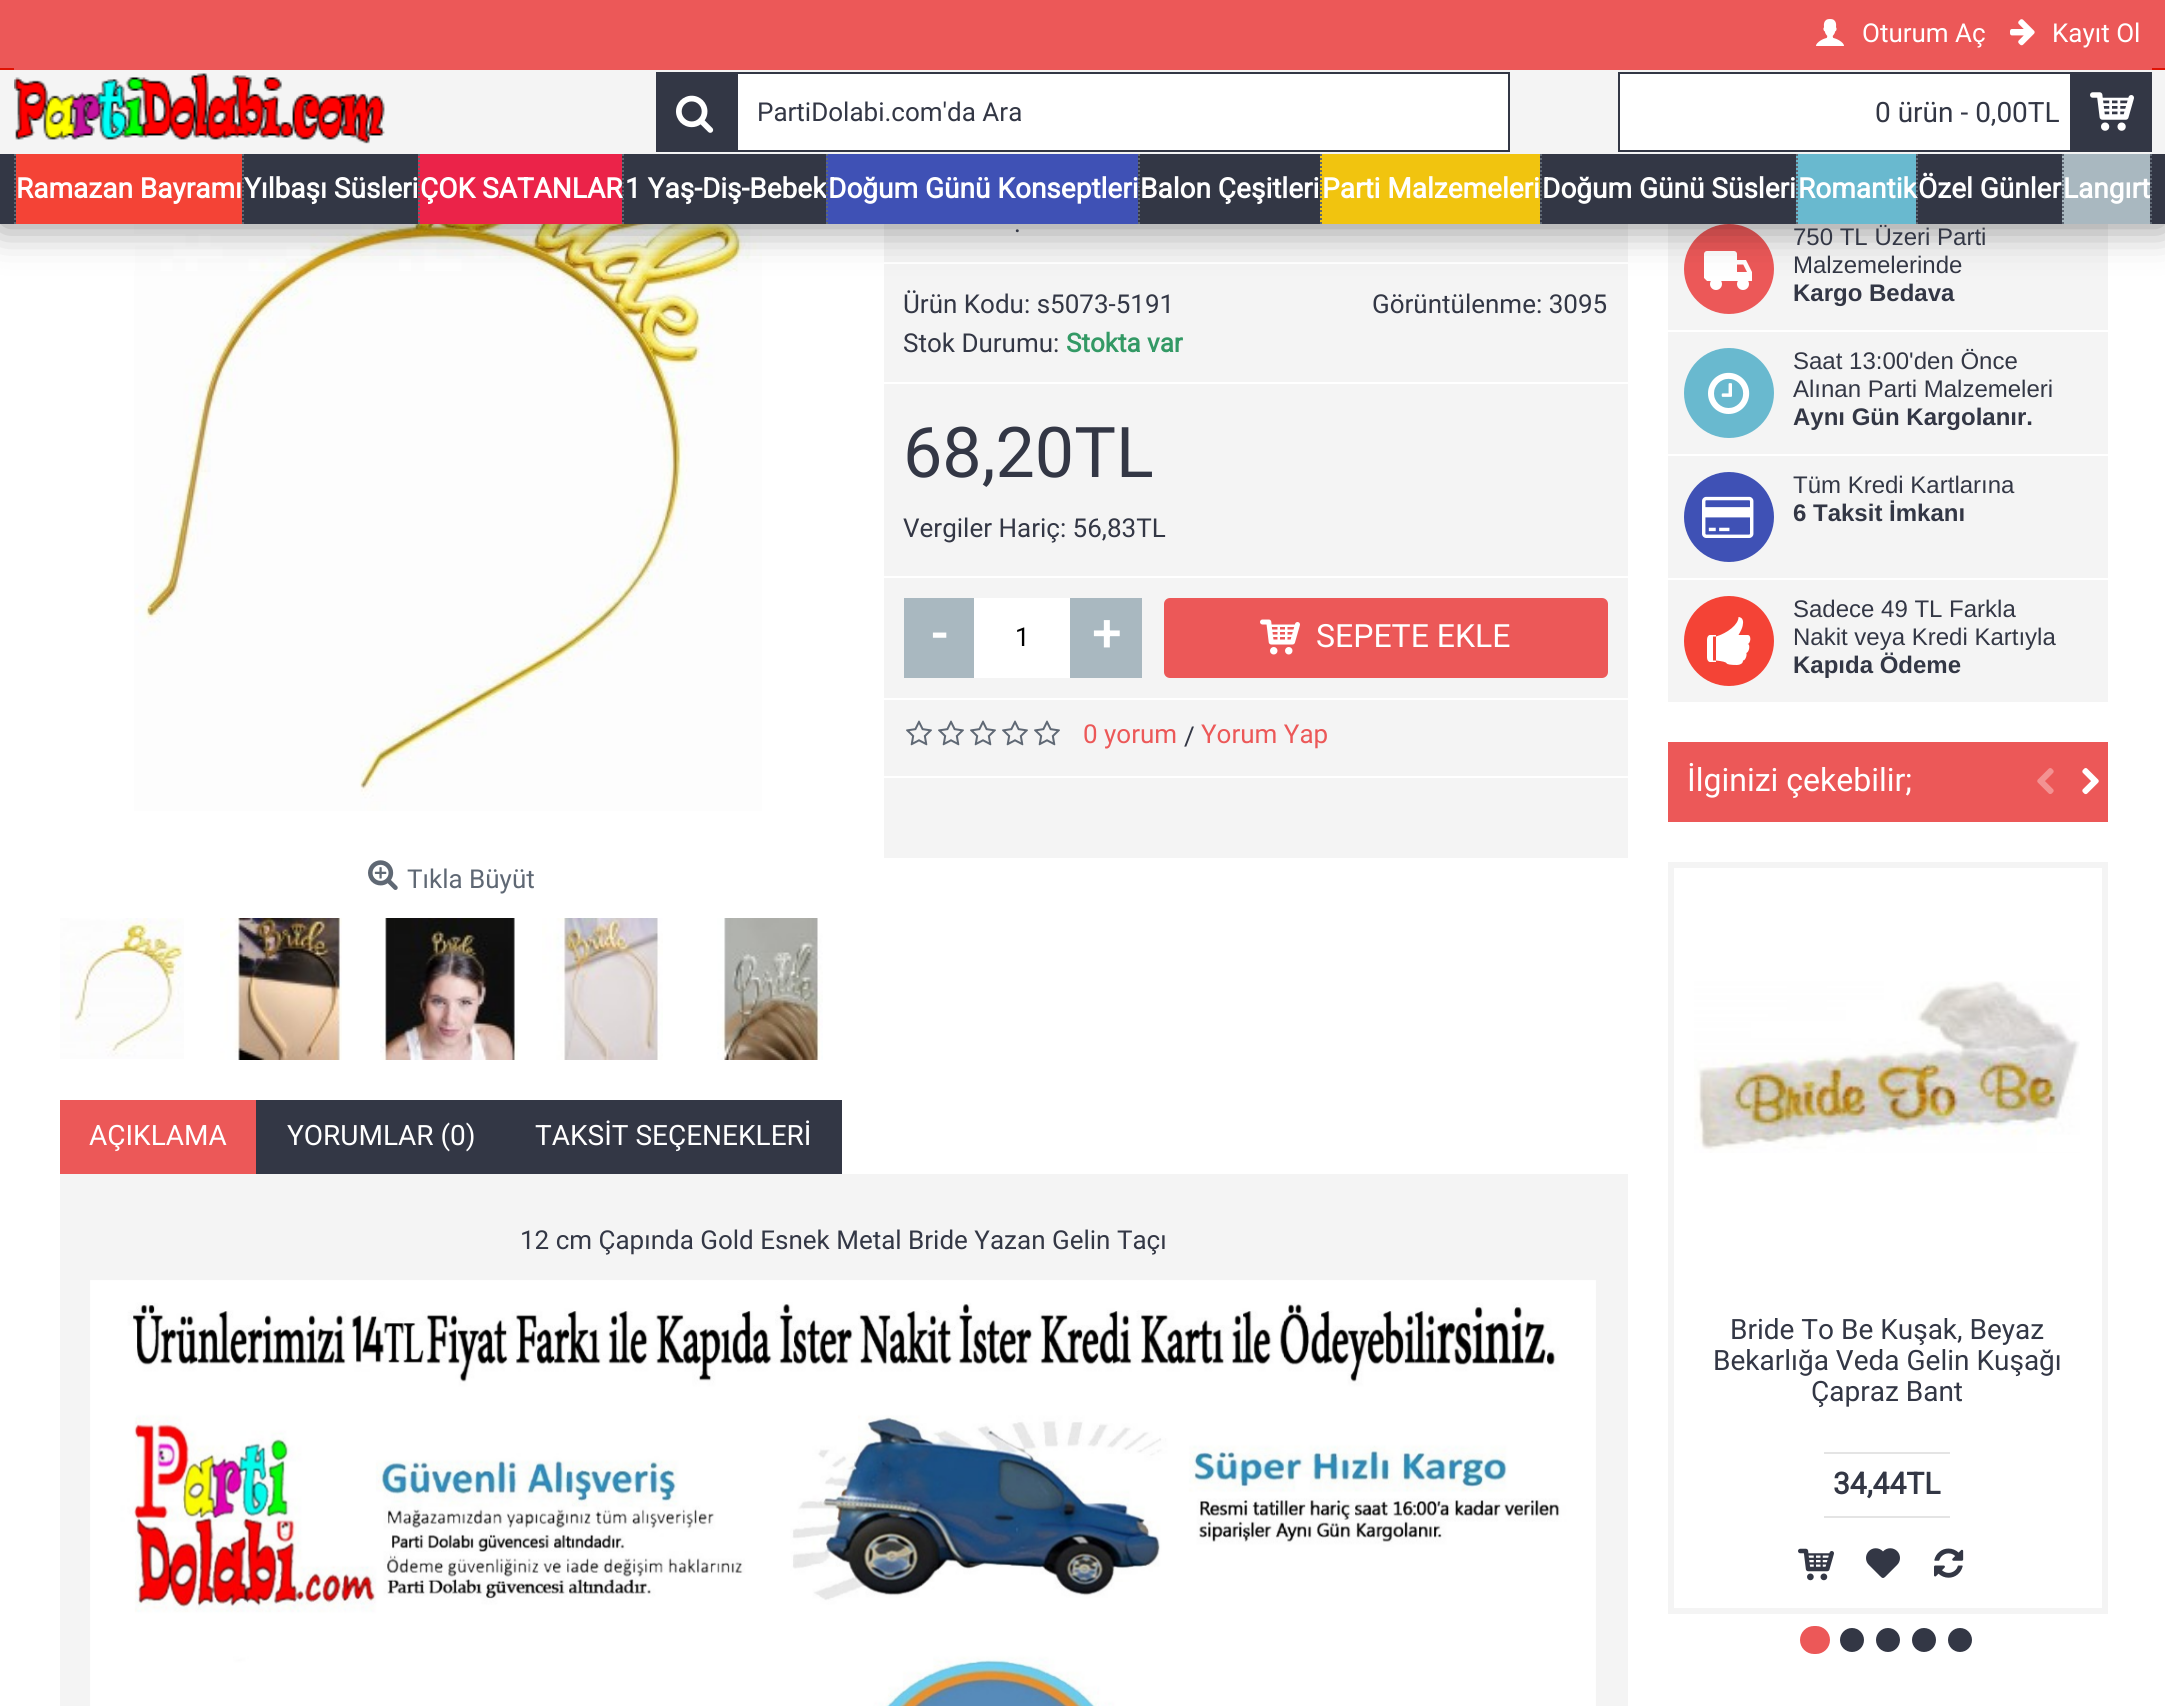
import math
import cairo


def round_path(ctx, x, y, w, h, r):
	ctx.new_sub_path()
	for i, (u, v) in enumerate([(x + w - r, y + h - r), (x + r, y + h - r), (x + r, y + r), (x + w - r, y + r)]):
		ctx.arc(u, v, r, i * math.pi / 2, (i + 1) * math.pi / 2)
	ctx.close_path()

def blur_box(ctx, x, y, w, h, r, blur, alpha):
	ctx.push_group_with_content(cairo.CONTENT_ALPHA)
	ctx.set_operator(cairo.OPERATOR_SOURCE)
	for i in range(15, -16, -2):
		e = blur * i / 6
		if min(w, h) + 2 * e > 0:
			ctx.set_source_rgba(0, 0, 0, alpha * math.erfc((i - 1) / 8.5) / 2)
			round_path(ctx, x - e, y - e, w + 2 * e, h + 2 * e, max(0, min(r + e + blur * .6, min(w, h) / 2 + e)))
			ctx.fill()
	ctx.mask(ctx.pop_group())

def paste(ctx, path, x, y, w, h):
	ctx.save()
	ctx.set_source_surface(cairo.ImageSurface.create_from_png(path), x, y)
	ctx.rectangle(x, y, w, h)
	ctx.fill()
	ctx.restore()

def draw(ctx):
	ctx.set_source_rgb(1, 1, 1)
	ctx.paint()
	ctx.set_source_rgb(0.957, 0.957, 0.957)
	ctx.rectangle(884, 224, 744, 38)
	ctx.fill()
	ctx.rectangle(884, 264, 744, 118)
	ctx.fill()
	paste(ctx, 'media/8.png', 134, 224, 628, 587)
	ctx.rectangle(1668, 224, 440, 106)
	ctx.fill()
	ctx.set_source_rgb(0.922, 0.345, 0.345)
	ctx.arc(1729, 269, 45, 0, 2 * math.pi)
	ctx.fill()
	paste(ctx, 'media/16.png', 1704, 251, 48, 39)
	ctx.set_source_rgb(0, 0, 0)
	blur_box(ctx, 0, 2, 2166, 224, 0, 20, 0.45)
	ctx.set_source_rgb(0.957, 0.957, 0.957)
	ctx.rectangle(0, 70, 2165, 84)
	ctx.fill()
	ctx.set_source_rgb(0.922, 0.345, 0.345)
	ctx.rectangle(0, 0, 2165, 68)
	ctx.fill()
	ctx.set_source_rgb(0.878, 0.071, 0.012)
	ctx.rectangle(0, 68, 2165, 2)
	ctx.fill()
	ctx.set_source_rgb(0.922, 0.345, 0.345)
	ctx.rectangle(14, 68, 2138, 2)
	ctx.fill()
	paste(ctx, 'media/1.png', 1816, 19, 28, 27)
	ctx.select_font_face('Roboto')
	ctx.set_font_size(26)
	ctx.set_source_rgb(1, 1, 1)
	ctx.move_to(1862, 42)
	ctx.show_text('Oturum Aç')
	paste(ctx, 'media/2.png', 2010, 19, 25, 27)
	ctx.move_to(2052, 42)
	ctx.show_text('Kayıt Ol')
	paste(ctx, 'media/3.png', 14, 73, 371, 71)
	ctx.rectangle(738, 74, 770, 76)
	ctx.fill()
	ctx.rectangle(657, 73, 852, 78)
	ctx.set_source_rgb(0.2, 0.216, 0.271)
	ctx.stroke()
	ctx.rectangle(658, 74, 80, 76)
	ctx.fill()
	paste(ctx, 'media/4.png', 676, 95, 38, 38)
	ctx.move_to(757, 121)
	ctx.show_text('PartiDolabi.com\'da Ara')
	ctx.set_source_rgb(1, 1, 1)
	ctx.rectangle(1620, 74, 450, 76)
	ctx.fill()
	ctx.rectangle(1619, 73, 532, 78)
	ctx.set_source_rgb(0.2, 0.216, 0.271)
	ctx.stroke()
	ctx.set_font_size(28)
	ctx.move_to(1875, 122)
	ctx.show_text('0 ürün - 0,00TL')
	ctx.rectangle(2070, 74, 80, 76)
	ctx.fill()
	paste(ctx, 'media/5.png', 2090, 92, 44, 39)
	ctx.rectangle(0, 154, 2165, 70)
	ctx.fill()
	ctx.new_path()
	ctx.move_to(2151, 154)
	ctx.line_to(2151, 224)
	ctx.set_source_rgb(0.373, 0.408, 0.455)
	ctx.set_dash([2, 2])
	ctx.stroke()
	ctx.new_path()
	ctx.move_to(15, 154)
	ctx.line_to(15, 224)
	ctx.stroke()
	ctx.set_source_rgb(0.957, 0.263, 0.212)
	ctx.rectangle(16, 154, 226, 70)
	ctx.fill()
	ctx.select_font_face('Roboto', cairo.FONT_SLANT_NORMAL, cairo.FONT_WEIGHT_BOLD)
	ctx.set_source_rgb(1, 1, 1)
	ctx.move_to(16, 198)
	ctx.show_text('Ramazan Bayramı')
	ctx.new_path()
	ctx.move_to(243, 154)
	ctx.line_to(243, 224)
	ctx.set_source_rgb(0.373, 0.408, 0.455)
	ctx.stroke()
	ctx.set_source_rgb(1, 1, 1)
	ctx.move_to(244, 198)
	ctx.show_text('Yılbaşı Süsleri')
	ctx.set_source_rgb(0.918, 0.137, 0.286)
	ctx.rectangle(418, 154, 204, 70)
	ctx.fill()
	ctx.new_path()
	ctx.move_to(419, 154)
	ctx.line_to(419, 224)
	ctx.set_source_rgb(0.373, 0.408, 0.455)
	ctx.stroke()
	ctx.set_source_rgb(1, 1, 1)
	ctx.move_to(420, 198)
	ctx.show_text('ÇOK SATANLAR')
	ctx.new_path()
	ctx.move_to(623, 154)
	ctx.line_to(623, 224)
	ctx.set_source_rgb(0.373, 0.408, 0.455)
	ctx.stroke()
	ctx.set_source_rgb(1, 1, 1)
	ctx.move_to(625, 198)
	ctx.show_text('1 Yaş-Diş-Bebek')
	ctx.set_source_rgb(0.247, 0.318, 0.71)
	ctx.rectangle(826, 154, 312, 70)
	ctx.fill()
	ctx.new_path()
	ctx.move_to(827, 154)
	ctx.line_to(827, 224)
	ctx.set_source_rgb(0.373, 0.408, 0.455)
	ctx.stroke()
	ctx.set_source_rgb(1, 1, 1)
	ctx.move_to(828, 198)
	ctx.show_text('Doğum Günü Konseptleri')
	ctx.new_path()
	ctx.move_to(1139, 154)
	ctx.line_to(1139, 224)
	ctx.set_source_rgb(0.373, 0.408, 0.455)
	ctx.stroke()
	ctx.set_source_rgb(1, 1, 1)
	ctx.move_to(1140, 198)
	ctx.show_text('Balon Çeşitleri')
	ctx.set_source_rgb(0.945, 0.769, 0.059)
	ctx.rectangle(1320, 154, 220, 70)
	ctx.fill()
	ctx.new_path()
	ctx.move_to(1321, 154)
	ctx.line_to(1321, 224)
	ctx.set_source_rgb(0.373, 0.408, 0.455)
	ctx.stroke()
	ctx.set_source_rgb(1, 1, 1)
	ctx.move_to(1322, 198)
	ctx.show_text('Parti Malzemeleri')
	ctx.new_path()
	ctx.move_to(1541, 154)
	ctx.line_to(1541, 224)
	ctx.set_source_rgb(0.373, 0.408, 0.455)
	ctx.stroke()
	ctx.set_source_rgb(1, 1, 1)
	ctx.move_to(1542, 198)
	ctx.show_text('Doğum Günü Süsleri')
	ctx.set_source_rgb(0.412, 0.725, 0.812)
	ctx.rectangle(1796, 154, 120, 70)
	ctx.fill()
	ctx.new_path()
	ctx.move_to(1797, 154)
	ctx.line_to(1797, 224)
	ctx.set_source_rgb(0.373, 0.408, 0.455)
	ctx.stroke()
	ctx.set_source_rgb(1, 1, 1)
	ctx.move_to(1798, 198)
	ctx.show_text('Romantik')
	ctx.new_path()
	ctx.move_to(1917, 154)
	ctx.line_to(1917, 224)
	ctx.set_source_rgb(0.373, 0.408, 0.455)
	ctx.stroke()
	ctx.set_source_rgb(1, 1, 1)
	ctx.move_to(1918, 198)
	ctx.show_text('Özel Günler')
	ctx.set_source_rgb(0.663, 0.722, 0.753)
	ctx.rectangle(2062, 154, 88, 70)
	ctx.fill()
	ctx.new_path()
	ctx.move_to(2063, 154)
	ctx.line_to(2063, 224)
	ctx.set_source_rgb(0.373, 0.408, 0.455)
	ctx.stroke()
	ctx.set_source_rgb(1, 1, 1)
	ctx.move_to(2063, 198)
	ctx.show_text('Langırt')
	ctx.select_font_face('Roboto')
	ctx.set_font_size(26)
	ctx.set_source_rgb(0.2, 0.216, 0.271)
	for x, y, s in [
		(1014, 232, '.'),
		(903, 313, 'Ürün Kodu: s5073-5191'),
		(1372, 313, 'Görüntülenme: 3095'),
		(903, 352, 'Stok Durumu:'),
	]:
		ctx.move_to(x, y)
		ctx.show_text(s)
	ctx.select_font_face('Roboto', cairo.FONT_SLANT_NORMAL, cairo.FONT_WEIGHT_BOLD)
	ctx.set_source_rgb(0.2, 0.6, 0.396)
	ctx.move_to(1066, 352)
	ctx.show_text('Stokta var')
	ctx.set_source_rgb(0.957, 0.957, 0.957)
	ctx.rectangle(884, 384, 744, 192)
	ctx.fill()
	ctx.select_font_face('Roboto')
	ctx.set_font_size(70)
	ctx.set_source_rgb(0.2, 0.216, 0.271)
	ctx.move_to(903, 477)
	ctx.show_text('68,20TL')
	ctx.set_font_size(26)
	ctx.move_to(903, 537)
	ctx.show_text('Vergiler Hariç: 56,83TL')
	ctx.set_source_rgb(0.957, 0.957, 0.957)
	ctx.rectangle(884, 578, 744, 120)
	ctx.fill()
	ctx.set_source_rgb(0.663, 0.722, 0.753)
	ctx.rectangle(904, 598, 70, 80)
	ctx.fill()
	ctx.select_font_face('Roboto', cairo.FONT_SLANT_NORMAL, cairo.FONT_WEIGHT_BOLD)
	ctx.set_font_size(50)
	ctx.set_source_rgb(1, 1, 1)
	ctx.move_to(932, 651)
	ctx.show_text('-')
	ctx.rectangle(974, 598, 96, 80)
	ctx.fill()
	ctx.select_font_face('Roboto')
	ctx.set_font_size(26)
	ctx.set_source_rgb(0, 0, 0)
	ctx.move_to(1015, 646)
	ctx.show_text('1')
	ctx.set_source_rgb(0.663, 0.722, 0.753)
	ctx.rectangle(1070, 598, 72, 80)
	ctx.fill()
	ctx.select_font_face('Roboto', cairo.FONT_SLANT_NORMAL, cairo.FONT_WEIGHT_BOLD)
	ctx.set_font_size(50)
	ctx.set_source_rgb(1, 1, 1)
	ctx.move_to(1092, 651)
	ctx.show_text('+')
	ctx.set_source_rgb(0.922, 0.345, 0.345)
	round_path(ctx, 1164, 598, 444, 80, 6)
	ctx.fill()
	paste(ctx, 'media/6.png', 1260, 619, 40, 36)
	ctx.select_font_face('Roboto')
	ctx.set_font_size(32)
	ctx.set_source_rgb(1, 1, 1)
	ctx.move_to(1316, 647)
	ctx.show_text('SEPETE EKLE')
	ctx.set_source_rgb(0.957, 0.957, 0.957)
	ctx.rectangle(884, 700, 744, 76)
	ctx.fill()
	paste(ctx, 'media/7.png', 906, 720, 26, 26)
	paste(ctx, 'media/7.png', 938, 720, 26, 26)
	paste(ctx, 'media/7.png', 970, 720, 26, 26)
	paste(ctx, 'media/7.png', 1002, 720, 26, 26)
	paste(ctx, 'media/7.png', 1034, 720, 26, 26)
	ctx.set_font_size(26)
	ctx.set_source_rgb(0.922, 0.345, 0.345)
	ctx.move_to(1083, 743)
	ctx.show_text('0 yorum')
	ctx.set_source_rgb(0.2, 0.216, 0.271)
	ctx.move_to(1184, 745)
	ctx.show_text('/')
	ctx.set_source_rgb(0.922, 0.345, 0.345)
	ctx.move_to(1201, 743)
	ctx.show_text('Yorum Yap')
	ctx.set_source_rgb(0.957, 0.957, 0.957)
	ctx.rectangle(884, 778, 744, 80)
	ctx.fill()
	paste(ctx, 'media/9.png', 368, 860, 30, 30)
	ctx.set_source_rgb(0.373, 0.408, 0.455)
	ctx.move_to(407, 888)
	ctx.show_text('Tıkla Büyüt')
	paste(ctx, 'media/10.png', 60, 918, 124, 141)
	paste(ctx, 'media/11.png', 220, 918, 122, 142)
	paste(ctx, 'media/12.png', 380, 918, 138, 142)
	paste(ctx, 'media/13.png', 542, 918, 121, 142)
	paste(ctx, 'media/14.png', 717, 918, 106, 142)
	ctx.set_source_rgb(0.922, 0.345, 0.345)
	ctx.rectangle(60, 1100, 196, 74)
	ctx.fill()
	ctx.set_font_size(28)
	ctx.set_source_rgb(1, 1, 1)
	ctx.move_to(89, 1145)
	ctx.show_text('AÇIKLAMA')
	ctx.set_source_rgb(0.2, 0.216, 0.271)
	ctx.rectangle(256, 1100, 586, 74)
	ctx.fill()
	ctx.set_source_rgb(1, 1, 1)
	ctx.move_to(287, 1145)
	ctx.show_text('YORUMLAR (0)')
	ctx.move_to(535, 1145)
	ctx.show_text('TAKSİT SEÇENEKLERİ')
	ctx.set_source_rgb(0.957, 0.957, 0.957)
	ctx.rectangle(60, 1174, 1568, 532)
	ctx.fill()
	ctx.set_font_size(26)
	ctx.set_source_rgb(0.2, 0.216, 0.271)
	ctx.move_to(520, 1249)
	ctx.show_text('12 cm Çapında Gold Esnek Metal Bride Yazan Gelin Taçı')
	paste(ctx, 'media/15.png', 90, 1280, 1506, 426)
	ctx.select_font_face('Liberation Sans')
	ctx.set_font_size(24)
	ctx.move_to(1793, 245)
	ctx.show_text('750 TL Üzeri Parti')
	ctx.move_to(1793, 273)
	ctx.show_text('Malzemelerinde')
	ctx.select_font_face('Liberation Sans', cairo.FONT_SLANT_NORMAL, cairo.FONT_WEIGHT_BOLD)
	ctx.move_to(1793, 301)
	ctx.show_text('Kargo Bedava')
	ctx.set_source_rgb(0.957, 0.957, 0.957)
	ctx.rectangle(1668, 332, 440, 122)
	ctx.fill()
	ctx.set_source_rgb(0.412, 0.725, 0.812)
	ctx.arc(1729, 393, 45, 0, 2 * math.pi)
	ctx.fill()
	paste(ctx, 'media/17.png', 1708, 372, 42, 42)
	ctx.select_font_face('Liberation Sans')
	ctx.set_source_rgb(0.2, 0.216, 0.271)
	ctx.move_to(1793, 369)
	ctx.show_text('Saat 13:00\'den Önce')
	ctx.move_to(1793, 397)
	ctx.show_text('Alınan Parti Malzemeleri')
	ctx.select_font_face('Liberation Sans', cairo.FONT_SLANT_NORMAL, cairo.FONT_WEIGHT_BOLD)
	ctx.move_to(1793, 425)
	ctx.show_text('Aynı Gün Kargolanır.')
	ctx.set_source_rgb(0.957, 0.957, 0.957)
	ctx.rectangle(1668, 456, 440, 122)
	ctx.fill()
	ctx.set_source_rgb(0.247, 0.318, 0.71)
	ctx.arc(1729, 517, 45, 0, 2 * math.pi)
	ctx.fill()
	paste(ctx, 'media/18.png', 1702, 496, 52, 42)
	ctx.select_font_face('Liberation Sans')
	ctx.set_source_rgb(0.2, 0.216, 0.271)
	ctx.move_to(1793, 493)
	ctx.show_text('Tüm Kredi Kartlarına')
	ctx.select_font_face('Liberation Sans', cairo.FONT_SLANT_NORMAL, cairo.FONT_WEIGHT_BOLD)
	ctx.move_to(1793, 521)
	ctx.show_text('6 Taksit İmkanı')
	ctx.set_source_rgb(0.957, 0.957, 0.957)
	ctx.rectangle(1668, 580, 440, 122)
	ctx.fill()
	ctx.set_source_rgb(0.957, 0.263, 0.212)
	ctx.arc(1729, 641, 45, 0, 2 * math.pi)
	ctx.fill()
	paste(ctx, 'media/19.png', 1707, 617, 44, 48)
	ctx.select_font_face('Liberation Sans')
	ctx.set_source_rgb(0.2, 0.216, 0.271)
	ctx.move_to(1793, 617)
	ctx.show_text('Sadece 49 TL Farkla')
	ctx.move_to(1793, 645)
	ctx.show_text('Nakit veya Kredi Kartıyla')
	ctx.select_font_face('Liberation Sans', cairo.FONT_SLANT_NORMAL, cairo.FONT_WEIGHT_BOLD)
	ctx.move_to(1793, 673)
	ctx.show_text('Kapıda Ödeme')
	ctx.set_source_rgb(0.922, 0.345, 0.345)
	ctx.rectangle(1668, 742, 440, 80)
	ctx.fill()
	ctx.select_font_face('Roboto')
	ctx.set_font_size(32)
	ctx.set_source_rgb(1, 1, 1)
	ctx.move_to(1687, 791)
	ctx.show_text('İlginizi çekebilir;')
	paste(ctx, 'media/20.png', 2037, 768, 17, 26)
	paste(ctx, 'media/21.png', 2082, 768, 17, 27)
	ctx.rectangle(1671, 865, 434, 746)
	ctx.set_source_rgb(0.957, 0.957, 0.957)
	ctx.set_line_width(6)
	ctx.set_dash([])
	ctx.stroke()
	paste(ctx, 'media/22.png', 1694, 981, 386, 172)
	ctx.set_font_size(28)
	ctx.set_source_rgb(0.2, 0.216, 0.271)
	for x, y, s in [
		(1730, 1339, 'Bride To Be Kuşak, Beyaz'),
		(1713, 1370, 'Bekarlığa Veda Gelin Kuşağı'),
		(1811, 1401, 'Çapraz Bant'),
	]:
		ctx.move_to(x, y)
		ctx.show_text(s)
	ctx.set_source_rgb(0.894, 0.894, 0.894)
	ctx.rectangle(1824, 1452, 126, 2)
	ctx.fill()
	ctx.rectangle(1824, 1516, 126, 2)
	ctx.fill()
	ctx.select_font_face('Roboto', cairo.FONT_SLANT_NORMAL, cairo.FONT_WEIGHT_BOLD)
	ctx.set_font_size(30)
	ctx.set_source_rgb(0.2, 0.216, 0.271)
	ctx.move_to(1833, 1494)
	ctx.show_text('34,44TL')
	paste(ctx, 'media/23.png', 1798, 1548, 36, 33)
	paste(ctx, 'media/24.png', 1866, 1548, 34, 30)
	paste(ctx, 'media/25.png', 1934, 1548, 30, 30)
	ctx.set_source_rgb(0.922, 0.345, 0.345)
	round_path(ctx, 1800, 1626, 30, 28, 14)
	ctx.fill()
	ctx.set_source_rgb(0.2, 0.216, 0.271)
	ctx.arc(1852, 1640, 12, 0, 2 * math.pi)
	ctx.fill()
	ctx.arc(1888, 1640, 12, 0, 2 * math.pi)
	ctx.fill()
	ctx.arc(1924, 1640, 12, 0, 2 * math.pi)
	ctx.fill()
	ctx.arc(1960, 1640, 12, 0, 2 * math.pi)
	ctx.fill()


surface = cairo.ImageSurface(cairo.FORMAT_RGB24, 2165, 1706)
ctx = cairo.Context(surface)
options = cairo.FontOptions()
options.set_hint_metrics(cairo.HINT_METRICS_OFF)
options.set_hint_style(cairo.HINT_STYLE_NONE)
ctx.set_font_options(options)
ctx.set_miter_limit(4)
draw(ctx)
surface.write_to_png('image.png')
